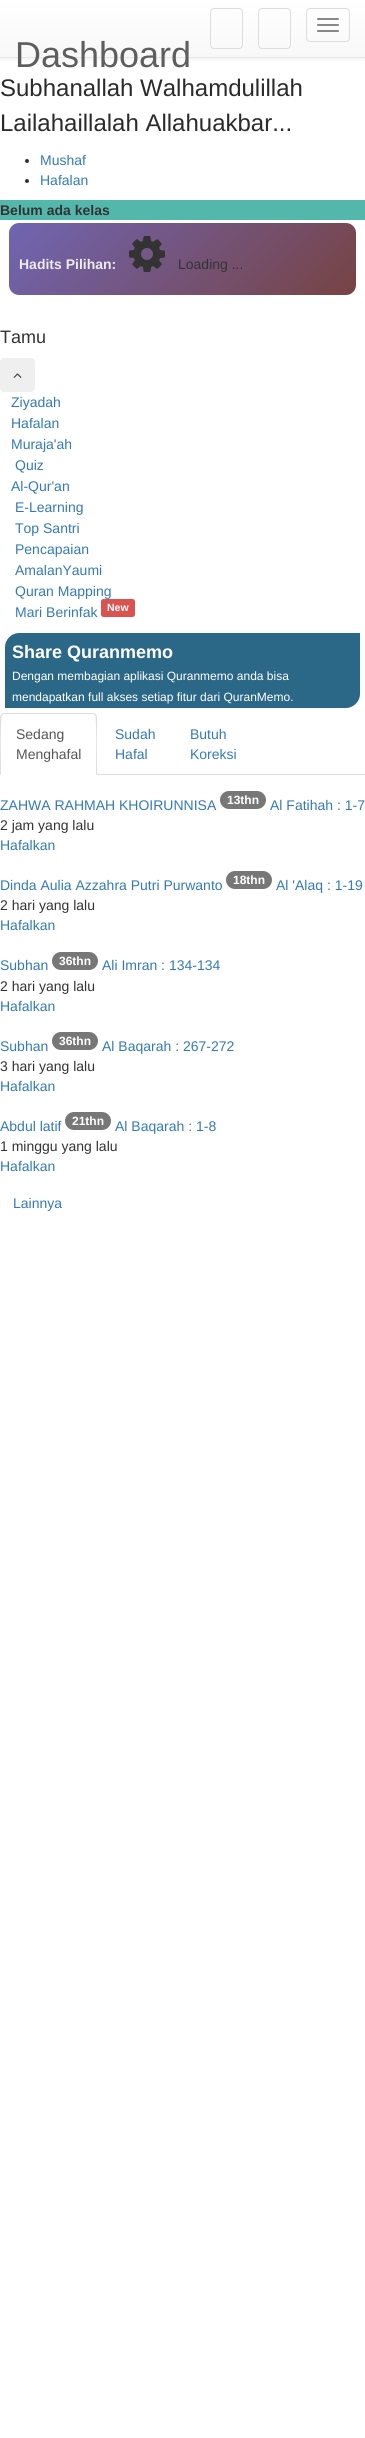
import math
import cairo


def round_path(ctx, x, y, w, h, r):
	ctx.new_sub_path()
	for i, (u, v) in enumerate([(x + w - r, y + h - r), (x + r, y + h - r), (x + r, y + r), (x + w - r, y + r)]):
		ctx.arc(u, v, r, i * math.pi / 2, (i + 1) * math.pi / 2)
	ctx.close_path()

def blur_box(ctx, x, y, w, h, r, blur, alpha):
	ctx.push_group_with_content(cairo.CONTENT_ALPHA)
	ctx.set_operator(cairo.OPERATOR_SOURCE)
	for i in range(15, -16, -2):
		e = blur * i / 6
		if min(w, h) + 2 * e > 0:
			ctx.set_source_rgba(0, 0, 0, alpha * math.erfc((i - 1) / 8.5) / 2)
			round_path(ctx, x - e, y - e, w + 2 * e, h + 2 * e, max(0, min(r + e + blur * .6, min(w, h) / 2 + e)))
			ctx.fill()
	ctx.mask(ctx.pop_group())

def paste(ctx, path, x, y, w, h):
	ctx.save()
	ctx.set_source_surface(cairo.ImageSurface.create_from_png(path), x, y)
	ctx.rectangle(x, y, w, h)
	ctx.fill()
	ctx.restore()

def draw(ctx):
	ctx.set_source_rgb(1, 1, 1)
	ctx.paint()
	ctx.set_source_rgb(0, 0, 0)
	blur_box(ctx, 0, 1, 365, 58, 0, 2.5, 0.07)
	gradient = cairo.LinearGradient(183, 0, 183, 57)
	gradient.add_color_stop_rgba(0, 1, 1, 1, 1)
	gradient.add_color_stop_rgba(1, 0.973, 0.973, 0.973, 1)
	ctx.set_source(gradient)
	ctx.rectangle(0, 0, 365, 57)
	ctx.fill()
	ctx.set_source_rgb(0.906, 0.906, 0.906)
	ctx.rectangle(0, 57, 365, 1)
	ctx.fill()
	round_path(ctx, 210.5, 8.5, 32, 40, 3.5)
	ctx.set_source_rgb(0.867, 0.867, 0.867)
	ctx.set_line_width(1)
	ctx.stroke()
	round_path(ctx, 258.5, 8.5, 32, 40, 3.5)
	ctx.stroke()
	round_path(ctx, 306.5, 8.5, 43, 33, 3.5)
	ctx.stroke()
	ctx.set_source_rgb(0.533, 0.533, 0.533)
	round_path(ctx, 317, 18, 22, 2, 1)
	ctx.fill()
	round_path(ctx, 317, 24, 22, 2, 1)
	ctx.fill()
	round_path(ctx, 317, 30, 22, 2, 1)
	ctx.fill()
	ctx.select_font_face('Liberation Sans')
	ctx.set_font_size(36)
	ctx.set_source_rgb(0.369, 0.369, 0.369)
	ctx.move_to(15, 67)
	ctx.show_text('Dashboard')
	ctx.set_font_size(24)
	ctx.set_source_rgb(0.169, 0.169, 0.169)
	ctx.move_to(0, 96)
	ctx.show_text('Subhanallah Walhamdulillah')
	ctx.move_to(0, 131)
	ctx.show_text('Lailahaillalah Allahuakbar...')
	ctx.set_source_rgb(0.2, 0.2, 0.2)
	ctx.new_path()
	ctx.arc(27, 161, 2, 0, 2 * math.pi)
	ctx.fill()
	ctx.set_font_size(14)
	ctx.set_source_rgb(0.2, 0.478, 0.718)
	ctx.move_to(40, 165)
	ctx.show_text('Mushaf')
	ctx.set_source_rgb(0.2, 0.2, 0.2)
	ctx.new_path()
	ctx.arc(27, 181, 2, 0, 2 * math.pi)
	ctx.fill()
	ctx.set_source_rgb(0.2, 0.478, 0.718)
	ctx.move_to(40, 185)
	ctx.show_text('Hafalan')
	ctx.set_source_rgb(0.329, 0.718, 0.675)
	ctx.rectangle(0, 200, 365, 20)
	ctx.fill()
	ctx.select_font_face('Liberation Sans', cairo.FONT_SLANT_NORMAL, cairo.FONT_WEIGHT_BOLD)
	ctx.set_source_rgb(0.2, 0.2, 0.2)
	ctx.move_to(0, 215)
	ctx.show_text('Belum ada kelas')
	gradient = cairo.LinearGradient(78, 154, 287, 364)
	gradient.add_color_stop_rgba(0, 0.439, 0.396, 0.702, 1)
	gradient.add_color_stop_rgba(1, 0.467, 0.263, 0.263, 1)
	gradient.add_color_stop_rgba(1, 1, 0.78, 0, 1)
	ctx.set_source(gradient)
	round_path(ctx, 9, 223, 347, 72, 10)
	ctx.fill()
	ctx.set_source_rgb(0.918, 0.918, 0.918)
	ctx.move_to(19, 269)
	ctx.show_text('Hadits Pilihan:')
	paste(ctx, 'media/1.png', 129, 236, 36, 36)
	ctx.select_font_face('Liberation Sans')
	ctx.set_source_rgb(0.2, 0.2, 0.2)
	ctx.move_to(178, 269)
	ctx.show_text('Loading ...')
	ctx.set_font_size(18)
	ctx.move_to(0, 343)
	ctx.show_text('Tamu')
	ctx.set_source_rgb(0.937, 0.937, 0.937)
	round_path(ctx, 0, 358, 35, 34, 4)
	ctx.fill()
	paste(ctx, 'media/2.png', 13, 373, 9, 5)
	ctx.set_font_size(14)
	ctx.set_source_rgb(0.2, 0.478, 0.718)
	for x, y, s in [
		(11, 407, 'Ziyadah'),
		(11, 428, 'Hafalan'),
		(11, 449, 'Muraja\'ah'),
		(15, 470, 'Quiz'),
		(11, 491, 'Al-Qur\'an'),
		(15, 512, 'E-Learning'),
		(15, 533, 'Top Santri'),
		(15, 554, 'Pencapaian'),
		(15, 575, 'AmalanYaumi'),
		(15, 596, 'Quran Mapping'),
		(15, 617, 'Mari Berinfak'),
	]:
		ctx.move_to(x, y)
		ctx.show_text(s)
	ctx.set_source_rgb(0.851, 0.325, 0.31)
	round_path(ctx, 101, 599, 34, 18, 2.5)
	ctx.fill()
	ctx.select_font_face('Liberation Sans', cairo.FONT_SLANT_NORMAL, cairo.FONT_WEIGHT_BOLD)
	ctx.set_font_size(10.5)
	ctx.set_source_rgb(1, 1, 1)
	ctx.move_to(107, 611)
	ctx.show_text('New')
	ctx.set_source_rgb(0.169, 0.408, 0.533)
	ctx.new_path()
	ctx.move_to(19, 633)
	ctx.line_to(360, 633)
	ctx.line_to(360, 694)
	ctx.curve_to(360, 701.5, 353.5, 708, 346, 708)
	ctx.line_to(5, 708)
	ctx.line_to(5, 647)
	ctx.curve_to(5, 639.5, 11.5, 633, 19, 633)
	ctx.close_path()
	ctx.fill()
	ctx.set_font_size(18)
	ctx.set_source_rgb(1, 1, 1)
	ctx.move_to(12, 658)
	ctx.show_text('Share Quranmemo')
	ctx.select_font_face('Liberation Sans')
	ctx.set_font_size(12)
	ctx.move_to(12, 680)
	ctx.show_text('Dengan membagian aplikasi Quranmemo anda bisa')
	ctx.move_to(12, 701)
	ctx.show_text('mendapatkan full akses setiap fitur dari QuranMemo.')
	ctx.set_source_rgb(0.867, 0.867, 0.867)
	ctx.rectangle(97, 774, 268, 1)
	ctx.fill()
	ctx.new_path()
	ctx.move_to(4, 713)
	ctx.line_to(1, 714)
	ctx.line_to(2, 715)
	ctx.line_to(4, 714)
	ctx.line_to(93, 714)
	ctx.line_to(95, 715)
	ctx.line_to(96, 714)
	ctx.line_to(93, 713)
	ctx.close_path()
	ctx.fill()
	ctx.new_path()
	ctx.move_to(97, 775)
	ctx.line_to(97, 717)
	ctx.line_to(96, 714)
	ctx.line_to(95, 715)
	ctx.curve_to(97, 717, 96, 767, 96, 774)
	ctx.close_path()
	ctx.fill()
	ctx.new_path()
	ctx.move_to(0, 775)
	ctx.line_to(1, 774)
	ctx.curve_to(1, 767, 0, 717, 2, 715)
	ctx.line_to(1, 714)
	ctx.line_to(0, 717)
	ctx.close_path()
	ctx.fill()
	ctx.set_font_size(14)
	ctx.set_source_rgb(0.333, 0.333, 0.333)
	ctx.move_to(16, 739)
	ctx.show_text('Sedang')
	ctx.move_to(16, 759)
	ctx.show_text('Menghafal')
	ctx.set_source_rgb(0.2, 0.478, 0.718)
	for x, y, s in [
		(115, 739, 'Sudah'),
		(115, 759, 'Hafal'),
		(190, 739, 'Butuh'),
		(190, 759, 'Koreksi'),
		(0, 810, 'ZAHWA RAHMAH KHOIRUNNISA'),
	]:
		ctx.move_to(x, y)
		ctx.show_text(s)
	ctx.set_source_rgb(0.467, 0.467, 0.467)
	round_path(ctx, 220, 791, 46, 18, 9)
	ctx.fill()
	ctx.select_font_face('Liberation Sans', cairo.FONT_SLANT_NORMAL, cairo.FONT_WEIGHT_BOLD)
	ctx.set_font_size(12)
	ctx.set_source_rgb(1, 1, 1)
	ctx.move_to(227, 804)
	ctx.show_text('13thn')
	ctx.select_font_face('Liberation Sans')
	ctx.set_font_size(14)
	ctx.set_source_rgb(0.2, 0.478, 0.718)
	ctx.move_to(270, 810)
	ctx.show_text('Al Fatihah : 1-7')
	ctx.set_source_rgb(0.2, 0.2, 0.2)
	ctx.move_to(0, 830)
	ctx.show_text('2 jam yang lalu')
	ctx.set_source_rgb(0.2, 0.478, 0.718)
	ctx.move_to(0, 850)
	ctx.show_text('Hafalkan')
	ctx.move_to(0, 890)
	ctx.show_text('Dinda Aulia Azzahra Putri Purwanto')
	ctx.set_source_rgb(0.467, 0.467, 0.467)
	round_path(ctx, 226, 871, 46, 18, 9)
	ctx.fill()
	ctx.select_font_face('Liberation Sans', cairo.FONT_SLANT_NORMAL, cairo.FONT_WEIGHT_BOLD)
	ctx.set_font_size(12)
	ctx.set_source_rgb(1, 1, 1)
	ctx.move_to(233, 884)
	ctx.show_text('18thn')
	ctx.select_font_face('Liberation Sans')
	ctx.set_font_size(14)
	ctx.set_source_rgb(0.2, 0.478, 0.718)
	ctx.move_to(276, 890)
	ctx.show_text('Al \'Alaq : 1-19')
	ctx.set_source_rgb(0.2, 0.2, 0.2)
	ctx.move_to(0, 910)
	ctx.show_text('2 hari yang lalu')
	ctx.set_source_rgb(0.2, 0.478, 0.718)
	ctx.move_to(0, 930)
	ctx.show_text('Hafalkan')
	ctx.move_to(0, 970)
	ctx.show_text('Subhan')
	ctx.set_source_rgb(0.467, 0.467, 0.467)
	round_path(ctx, 52, 952, 46, 18, 9)
	ctx.fill()
	ctx.select_font_face('Liberation Sans', cairo.FONT_SLANT_NORMAL, cairo.FONT_WEIGHT_BOLD)
	ctx.set_font_size(12)
	ctx.set_source_rgb(1, 1, 1)
	ctx.move_to(59, 965)
	ctx.show_text('36thn')
	ctx.select_font_face('Liberation Sans')
	ctx.set_font_size(14)
	ctx.set_source_rgb(0.2, 0.478, 0.718)
	ctx.move_to(102, 970)
	ctx.show_text('Ali Imran : 134-134')
	ctx.set_source_rgb(0.2, 0.2, 0.2)
	ctx.move_to(0, 991)
	ctx.show_text('2 hari yang lalu')
	ctx.set_source_rgb(0.2, 0.478, 0.718)
	ctx.move_to(0, 1011)
	ctx.show_text('Hafalkan')
	ctx.move_to(0, 1051)
	ctx.show_text('Subhan')
	ctx.set_source_rgb(0.467, 0.467, 0.467)
	round_path(ctx, 52, 1032, 46, 18, 9)
	ctx.fill()
	ctx.select_font_face('Liberation Sans', cairo.FONT_SLANT_NORMAL, cairo.FONT_WEIGHT_BOLD)
	ctx.set_font_size(12)
	ctx.set_source_rgb(1, 1, 1)
	ctx.move_to(59, 1045)
	ctx.show_text('36thn')
	ctx.select_font_face('Liberation Sans')
	ctx.set_font_size(14)
	ctx.set_source_rgb(0.2, 0.478, 0.718)
	ctx.move_to(102, 1051)
	ctx.show_text('Al Baqarah : 267-272')
	ctx.set_source_rgb(0.2, 0.2, 0.2)
	ctx.move_to(0, 1071)
	ctx.show_text('3 hari yang lalu')
	ctx.set_source_rgb(0.2, 0.478, 0.718)
	ctx.move_to(0, 1091)
	ctx.show_text('Hafalkan')
	ctx.move_to(0, 1131)
	ctx.show_text('Abdul latif')
	ctx.set_source_rgb(0.467, 0.467, 0.467)
	round_path(ctx, 65, 1112, 46, 18, 9)
	ctx.fill()
	ctx.select_font_face('Liberation Sans', cairo.FONT_SLANT_NORMAL, cairo.FONT_WEIGHT_BOLD)
	ctx.set_font_size(12)
	ctx.set_source_rgb(1, 1, 1)
	ctx.move_to(72, 1125)
	ctx.show_text('21thn')
	ctx.select_font_face('Liberation Sans')
	ctx.set_font_size(14)
	ctx.set_source_rgb(0.2, 0.478, 0.718)
	ctx.move_to(115, 1131)
	ctx.show_text('Al Baqarah : 1-8')
	ctx.set_source_rgb(0.2, 0.2, 0.2)
	ctx.move_to(0, 1151)
	ctx.show_text('1 minggu yang lalu')
	ctx.set_source_rgb(0.2, 0.478, 0.718)
	ctx.move_to(0, 1171)
	ctx.show_text('Hafalkan')
	ctx.move_to(13, 1208)
	ctx.show_text('Lainnya')


surface = cairo.ImageSurface(cairo.FORMAT_RGB24, 365, 2438)
ctx = cairo.Context(surface)
options = cairo.FontOptions()
options.set_hint_metrics(cairo.HINT_METRICS_OFF)
options.set_hint_style(cairo.HINT_STYLE_NONE)
ctx.set_font_options(options)
ctx.set_miter_limit(4)
draw(ctx)
surface.write_to_png('image.png')
